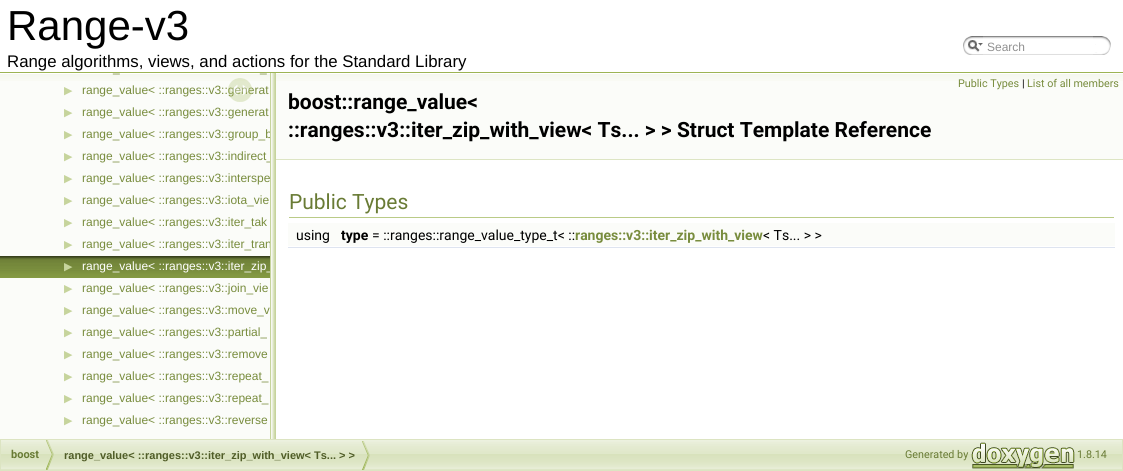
import math
import cairo


def paste(ctx, path, x, y, w, h):
	ctx.save()
	ctx.set_source_surface(cairo.ImageSurface.create_from_png(path), x, y)
	ctx.rectangle(x, y, w, h)
	ctx.fill()
	ctx.restore()

def draw(ctx):
	ctx.set_source_rgb(1, 1, 1)
	ctx.paint()
	ctx.set_source_rgb(0.612, 0.706, 0.325)
	ctx.rectangle(0, 72, 1123, 1)
	ctx.fill()
	ctx.select_font_face('Liberation Sans')
	ctx.set_font_size(42)
	ctx.set_source_rgb(0, 0, 0)
	ctx.move_to(7, 40)
	ctx.show_text('Range-v3')
	ctx.set_font_size(16.8)
	ctx.move_to(7, 67)
	ctx.show_text('Range algorithms, views, and actions for the Standard Library')
	paste(ctx, 'media/1.png', 963, 36, 20, 19)
	paste(ctx, 'media/2.png', 968, 40, 15, 12)
	paste(ctx, 'media/3.png', 983, 36, 110, 19)
	ctx.set_font_size(12)
	ctx.set_source_rgb(0.565, 0.565, 0.565)
	ctx.move_to(987, 51)
	ctx.show_text('Search')
	paste(ctx, 'media/4.png', 1093, 36, 18, 19)
	ctx.set_source_rgb(0.984, 0.988, 0.976)
	ctx.rectangle(0, 81, 270, 358)
	ctx.fill()
	paste(ctx, 'media/5.png', 0, 73, 270, 8)
	ctx.set_source_rgb(0.471, 0.549, 0.239)
	ctx.move_to(113, 72)
	ctx.show_text('_')
	ctx.move_to(260, 72)
	ctx.show_text('_')
	ctx.select_font_face('DejaVu Sans')
	ctx.set_font_size(11)
	ctx.set_source_rgb(0.776, 0.831, 0.612)
	ctx.move_to(64, 94)
	ctx.show_text('▶')
	ctx.select_font_face('Liberation Sans')
	ctx.set_font_size(12)
	ctx.set_source_rgb(0.471, 0.549, 0.239)
	ctx.move_to(82, 94)
	ctx.show_text('range_value< ::ranges::v3::generat')
	ctx.select_font_face('DejaVu Sans')
	ctx.set_font_size(11)
	ctx.set_source_rgb(0.776, 0.831, 0.612)
	ctx.move_to(64, 116)
	ctx.show_text('▶')
	ctx.select_font_face('Liberation Sans')
	ctx.set_font_size(12)
	ctx.set_source_rgb(0.471, 0.549, 0.239)
	ctx.move_to(82, 116)
	ctx.show_text('range_value< ::ranges::v3::generat')
	ctx.select_font_face('DejaVu Sans')
	ctx.set_font_size(11)
	ctx.set_source_rgb(0.776, 0.831, 0.612)
	ctx.move_to(64, 138)
	ctx.show_text('▶')
	ctx.select_font_face('Liberation Sans')
	ctx.set_font_size(12)
	ctx.set_source_rgb(0.471, 0.549, 0.239)
	ctx.move_to(82, 138)
	ctx.show_text('range_value< ::ranges::v3::group_b')
	ctx.select_font_face('DejaVu Sans')
	ctx.set_font_size(11)
	ctx.set_source_rgb(0.776, 0.831, 0.612)
	ctx.move_to(64, 160)
	ctx.show_text('▶')
	ctx.select_font_face('Liberation Sans')
	ctx.set_font_size(12)
	ctx.set_source_rgb(0.471, 0.549, 0.239)
	ctx.move_to(82, 160)
	ctx.show_text('range_value< ::ranges::v3::indirect_')
	ctx.select_font_face('DejaVu Sans')
	ctx.set_font_size(11)
	ctx.set_source_rgb(0.776, 0.831, 0.612)
	ctx.move_to(64, 182)
	ctx.show_text('▶')
	ctx.select_font_face('Liberation Sans')
	ctx.set_font_size(12)
	ctx.set_source_rgb(0.471, 0.549, 0.239)
	ctx.move_to(82, 182)
	ctx.show_text('range_value< ::ranges::v3::interspe')
	ctx.select_font_face('DejaVu Sans')
	ctx.set_font_size(11)
	ctx.set_source_rgb(0.776, 0.831, 0.612)
	ctx.move_to(64, 204)
	ctx.show_text('▶')
	ctx.select_font_face('Liberation Sans')
	ctx.set_font_size(12)
	ctx.set_source_rgb(0.471, 0.549, 0.239)
	ctx.move_to(82, 204)
	ctx.show_text('range_value< ::ranges::v3::iota_vie')
	ctx.select_font_face('DejaVu Sans')
	ctx.set_font_size(11)
	ctx.set_source_rgb(0.776, 0.831, 0.612)
	ctx.move_to(64, 226)
	ctx.show_text('▶')
	ctx.select_font_face('Liberation Sans')
	ctx.set_font_size(12)
	ctx.set_source_rgb(0.471, 0.549, 0.239)
	ctx.move_to(82, 226)
	ctx.show_text('range_value< ::ranges::v3::iter_tak')
	ctx.select_font_face('DejaVu Sans')
	ctx.set_font_size(11)
	ctx.set_source_rgb(0.776, 0.831, 0.612)
	ctx.move_to(64, 248)
	ctx.show_text('▶')
	ctx.select_font_face('Liberation Sans')
	ctx.set_font_size(12)
	ctx.set_source_rgb(0.471, 0.549, 0.239)
	ctx.move_to(82, 248)
	ctx.show_text('range_value< ::ranges::v3::iter_tran')
	paste(ctx, 'media/6.png', 0, 256, 270, 22)
	ctx.select_font_face('DejaVu Sans')
	ctx.set_font_size(11)
	ctx.set_source_rgb(0.776, 0.831, 0.612)
	ctx.move_to(64, 270)
	ctx.show_text('▶')
	ctx.select_font_face('Liberation Sans')
	ctx.set_font_size(12)
	ctx.set_source_rgb(1, 1, 1)
	ctx.move_to(82, 270)
	ctx.show_text('range_value< ::ranges::v3::iter_zip_')
	ctx.select_font_face('DejaVu Sans')
	ctx.set_font_size(11)
	ctx.set_source_rgb(0.776, 0.831, 0.612)
	ctx.move_to(64, 292)
	ctx.show_text('▶')
	ctx.select_font_face('Liberation Sans')
	ctx.set_font_size(12)
	ctx.set_source_rgb(0.471, 0.549, 0.239)
	ctx.move_to(82, 292)
	ctx.show_text('range_value< ::ranges::v3::join_vie')
	ctx.select_font_face('DejaVu Sans')
	ctx.set_font_size(11)
	ctx.set_source_rgb(0.776, 0.831, 0.612)
	ctx.move_to(64, 314)
	ctx.show_text('▶')
	ctx.select_font_face('Liberation Sans')
	ctx.set_font_size(12)
	ctx.set_source_rgb(0.471, 0.549, 0.239)
	ctx.move_to(82, 314)
	ctx.show_text('range_value< ::ranges::v3::move_v')
	ctx.select_font_face('DejaVu Sans')
	ctx.set_font_size(11)
	ctx.set_source_rgb(0.776, 0.831, 0.612)
	ctx.move_to(64, 336)
	ctx.show_text('▶')
	ctx.select_font_face('Liberation Sans')
	ctx.set_font_size(12)
	ctx.set_source_rgb(0.471, 0.549, 0.239)
	ctx.move_to(82, 336)
	ctx.show_text('range_value< ::ranges::v3::partial_')
	ctx.select_font_face('DejaVu Sans')
	ctx.set_font_size(11)
	ctx.set_source_rgb(0.776, 0.831, 0.612)
	ctx.move_to(64, 358)
	ctx.show_text('▶')
	ctx.select_font_face('Liberation Sans')
	ctx.set_font_size(12)
	ctx.set_source_rgb(0.471, 0.549, 0.239)
	ctx.move_to(82, 358)
	ctx.show_text('range_value< ::ranges::v3::remove')
	ctx.select_font_face('DejaVu Sans')
	ctx.set_font_size(11)
	ctx.set_source_rgb(0.776, 0.831, 0.612)
	ctx.move_to(64, 380)
	ctx.show_text('▶')
	ctx.select_font_face('Liberation Sans')
	ctx.set_font_size(12)
	ctx.set_source_rgb(0.471, 0.549, 0.239)
	ctx.move_to(82, 380)
	ctx.show_text('range_value< ::ranges::v3::repeat_')
	ctx.select_font_face('DejaVu Sans')
	ctx.set_font_size(11)
	ctx.set_source_rgb(0.776, 0.831, 0.612)
	ctx.move_to(64, 402)
	ctx.show_text('▶')
	ctx.select_font_face('Liberation Sans')
	ctx.set_font_size(12)
	ctx.set_source_rgb(0.471, 0.549, 0.239)
	ctx.move_to(82, 402)
	ctx.show_text('range_value< ::ranges::v3::repeat_')
	ctx.select_font_face('DejaVu Sans')
	ctx.set_font_size(11)
	ctx.set_source_rgb(0.776, 0.831, 0.612)
	ctx.move_to(64, 424)
	ctx.show_text('▶')
	ctx.select_font_face('Liberation Sans')
	ctx.set_font_size(12)
	ctx.set_source_rgb(0.471, 0.549, 0.239)
	ctx.move_to(82, 424)
	ctx.show_text('range_value< ::ranges::v3::reverse')
	paste(ctx, 'media/7.png', 228, 78, 24, 24)
	paste(ctx, 'media/8.png', 270, 73, 6, 366)
	ctx.set_source_rgb(0.984, 0.988, 0.976)
	ctx.rectangle(276, 81, 847, 78)
	ctx.fill()
	paste(ctx, 'media/9.png', 276, 73, 847, 8)
	ctx.set_source_rgb(0.867, 0.898, 0.769)
	ctx.rectangle(276, 159, 847, 1)
	ctx.fill()
	ctx.select_font_face('Roboto')
	ctx.set_font_size(10.75)
	ctx.set_source_rgb(0.471, 0.549, 0.239)
	ctx.move_to(958, 87)
	ctx.show_text('Public Types')
	ctx.set_source_rgb(0, 0, 0)
	ctx.move_to(1022, 87)
	ctx.show_text('|')
	ctx.set_source_rgb(0.471, 0.549, 0.239)
	ctx.move_to(1027, 87)
	ctx.show_text('List of all members')
	ctx.select_font_face('Roboto', cairo.FONT_SLANT_NORMAL, cairo.FONT_WEIGHT_BOLD)
	ctx.set_font_size(21)
	ctx.set_source_rgb(0, 0, 0)
	ctx.move_to(288, 109)
	ctx.show_text('boost::range_value<')
	ctx.move_to(288, 137)
	ctx.show_text('::ranges::v3::iter_zip_with_view< Ts... > > Struct Template Reference')
	ctx.set_source_rgb(0.729, 0.796, 0.529)
	ctx.rectangle(289, 217, 825, 1)
	ctx.fill()
	ctx.select_font_face('Roboto')
	ctx.set_source_rgb(0.412, 0.482, 0.208)
	ctx.move_to(289, 209)
	ctx.show_text('Public Types')
	ctx.set_source_rgb(0.984, 0.988, 0.976)
	ctx.rectangle(288, 223, 827, 23)
	ctx.fill()
	ctx.set_font_size(14)
	ctx.set_source_rgb(0, 0, 0)
	ctx.move_to(296, 240)
	ctx.show_text('using')
	ctx.select_font_face('Roboto', cairo.FONT_SLANT_NORMAL, cairo.FONT_WEIGHT_BOLD)
	ctx.move_to(341, 240)
	ctx.show_text('type')
	ctx.select_font_face('Roboto')
	ctx.move_to(372, 240)
	ctx.show_text('= ::ranges::range_value_type_t< ::')
	ctx.select_font_face('Roboto', cairo.FONT_SLANT_NORMAL, cairo.FONT_WEIGHT_BOLD)
	ctx.set_source_rgb(0.471, 0.549, 0.239)
	ctx.move_to(575, 240)
	ctx.show_text('ranges::v3::iter_zip_with_view')
	ctx.select_font_face('Roboto')
	ctx.set_source_rgb(0, 0, 0)
	ctx.move_to(763, 240)
	ctx.show_text('< Ts... > >')
	ctx.set_source_rgb(0.871, 0.894, 0.941)
	ctx.rectangle(288, 247, 827, 1)
	ctx.fill()
	paste(ctx, 'media/10.png', 1, 440, 1121, 30)
	ctx.rectangle(0.5, 439.5, 1122, 31)
	ctx.set_source_rgb(0.863, 0.894, 0.761)
	ctx.set_line_width(1)
	ctx.stroke()
	paste(ctx, 'media/11.png', 46, 440, 8, 30)
	ctx.select_font_face('Roboto', cairo.FONT_SLANT_NORMAL, cairo.FONT_WEIGHT_BOLD)
	ctx.set_font_size(11)
	ctx.set_source_rgb(0.412, 0.482, 0.208)
	ctx.move_to(11, 458)
	ctx.show_text('boost')
	paste(ctx, 'media/12.png', 362, 441, 8, 29)
	ctx.select_font_face('Liberation Sans', cairo.FONT_SLANT_NORMAL, cairo.FONT_WEIGHT_BOLD)
	ctx.set_source_rgb(0.314, 0.365, 0.157)
	ctx.move_to(64, 459)
	ctx.show_text('range_value< ::ranges::v3::iter_zip_with_view< Ts... > >')
	ctx.select_font_face('Roboto')
	ctx.set_font_size(10.75)
	ctx.set_source_rgb(0.412, 0.482, 0.208)
	ctx.move_to(905, 458)
	ctx.show_text('Generated by')
	paste(ctx, 'media/13.png', 971, 442, 104, 27)
	ctx.move_to(1077, 458)
	ctx.show_text('1.8.14')


surface = cairo.ImageSurface(cairo.FORMAT_RGB24, 1123, 471)
ctx = cairo.Context(surface)
options = cairo.FontOptions()
options.set_hint_metrics(cairo.HINT_METRICS_OFF)
options.set_hint_style(cairo.HINT_STYLE_NONE)
ctx.set_font_options(options)
ctx.set_miter_limit(4)
draw(ctx)
surface.write_to_png('image.png')
